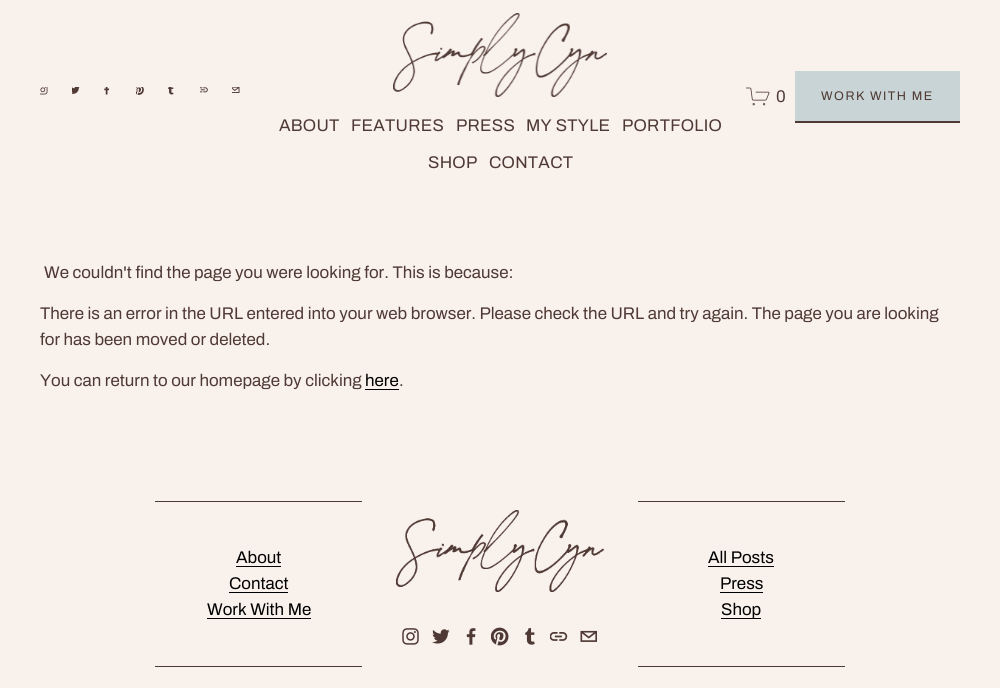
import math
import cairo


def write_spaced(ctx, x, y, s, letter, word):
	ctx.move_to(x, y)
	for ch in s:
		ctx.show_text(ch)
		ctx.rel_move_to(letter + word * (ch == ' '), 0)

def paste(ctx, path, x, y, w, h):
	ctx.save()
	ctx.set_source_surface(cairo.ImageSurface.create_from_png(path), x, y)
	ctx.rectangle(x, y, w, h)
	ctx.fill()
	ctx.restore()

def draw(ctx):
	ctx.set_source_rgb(0.973, 0.945, 0.922)
	ctx.paint()
	paste(ctx, 'media/1.png', 40, 87, 8, 8)
	paste(ctx, 'media/2.png', 72, 87, 8, 7)
	paste(ctx, 'media/3.png', 104, 87, 6, 8)
	paste(ctx, 'media/4.png', 136, 87, 8, 8)
	paste(ctx, 'media/5.png', 168, 87, 6, 8)
	paste(ctx, 'media/6.png', 200, 87, 8, 6)
	paste(ctx, 'media/7.png', 232, 87, 8, 6)
	paste(ctx, 'media/8.png', 746, 87, 24, 19)
	ctx.select_font_face('Archivo')
	ctx.set_font_size(16.92)
	ctx.set_source_rgb(0.31, 0.224, 0.204)
	write_spaced(ctx, 776, 102, '0', 0.25, 0)
	ctx.set_source_rgb(0.784, 0.831, 0.835)
	ctx.rectangle(795, 71, 165, 50)
	ctx.fill()
	ctx.set_source_rgb(0.31, 0.224, 0.204)
	ctx.rectangle(795, 121, 165, 2)
	ctx.fill()
	ctx.set_font_size(12.5)
	write_spaced(ctx, 821, 100, 'WORK WITH ME', 1.5, 0)
	paste(ctx, 'media/9.png', 393, 13, 214, 84)
	ctx.set_font_size(16.92)
	for x, y, s in [
		(279, 131, 'ABOUT'),
		(351, 131, 'FEATURES'),
		(456, 131, 'PRESS'),
		(526, 131, 'MY STYLE'),
		(622, 131, 'PORTFOLIO'),
		(428, 168, 'SHOP'),
		(489, 168, 'CONTACT'),
	]:
		write_spaced(ctx, x, y, s, 0.25, 0)
	for x, y, s in [
		(44, 278, 'We couldn\'t find the page you were looking for. This is because:'),
		(40, 319, 'There is an error in the URL entered into your web browser. Please check the URL and try again. The page you are looking'),
		(40, 345, 'for has been moved or deleted.'),
		(40, 386, 'You can return to our homepage by clicking'),
	]:
		ctx.move_to(x, y)
		ctx.show_text(s)
	ctx.set_source_rgb(0, 0, 0)
	ctx.move_to(365, 386)
	ctx.show_text('here')
	ctx.rectangle(365, 389, 34, 1)
	ctx.fill()
	ctx.set_source_rgb(0.31, 0.224, 0.204)
	ctx.move_to(399, 386)
	ctx.show_text('.')
	ctx.rectangle(155, 501, 207, 1)
	ctx.fill()
	ctx.set_source_rgb(0, 0, 0)
	ctx.move_to(236, 563)
	ctx.show_text('About')
	ctx.rectangle(236, 566, 45, 1)
	ctx.fill()
	ctx.move_to(229, 589)
	ctx.show_text('Contact')
	ctx.rectangle(229, 592, 59, 1)
	ctx.fill()
	ctx.move_to(207, 615)
	ctx.show_text('Work With Me')
	ctx.rectangle(207, 618, 104, 1)
	ctx.fill()
	ctx.set_source_rgb(0.31, 0.224, 0.204)
	ctx.rectangle(155, 666, 207, 1)
	ctx.fill()
	paste(ctx, 'media/10.png', 396, 510, 208, 82)
	paste(ctx, 'media/11.png', 402, 628, 17, 17)
	paste(ctx, 'media/12.png', 432, 629, 18, 15)
	paste(ctx, 'media/13.png', 466, 628, 10, 17)
	paste(ctx, 'media/14.png', 491, 627, 18, 19)
	paste(ctx, 'media/15.png', 525, 628, 10, 17)
	paste(ctx, 'media/16.png', 550, 632, 18, 9)
	paste(ctx, 'media/17.png', 580, 630, 17, 12)
	ctx.rectangle(638, 501, 207, 1)
	ctx.fill()
	ctx.set_source_rgb(0, 0, 0)
	ctx.move_to(708, 563)
	ctx.show_text('All Posts')
	ctx.rectangle(708, 566, 66, 1)
	ctx.fill()
	ctx.move_to(720, 589)
	ctx.show_text('Press')
	ctx.rectangle(720, 592, 43, 1)
	ctx.fill()
	ctx.move_to(721, 615)
	ctx.show_text('Shop')
	ctx.rectangle(721, 618, 40, 1)
	ctx.fill()
	ctx.set_source_rgb(0.31, 0.224, 0.204)
	ctx.rectangle(638, 666, 207, 1)
	ctx.fill()


surface = cairo.ImageSurface(cairo.FORMAT_RGB24, 1000, 688)
ctx = cairo.Context(surface)
options = cairo.FontOptions()
options.set_hint_metrics(cairo.HINT_METRICS_OFF)
options.set_hint_style(cairo.HINT_STYLE_NONE)
ctx.set_font_options(options)
ctx.set_miter_limit(4)
draw(ctx)
surface.write_to_png('image.png')
